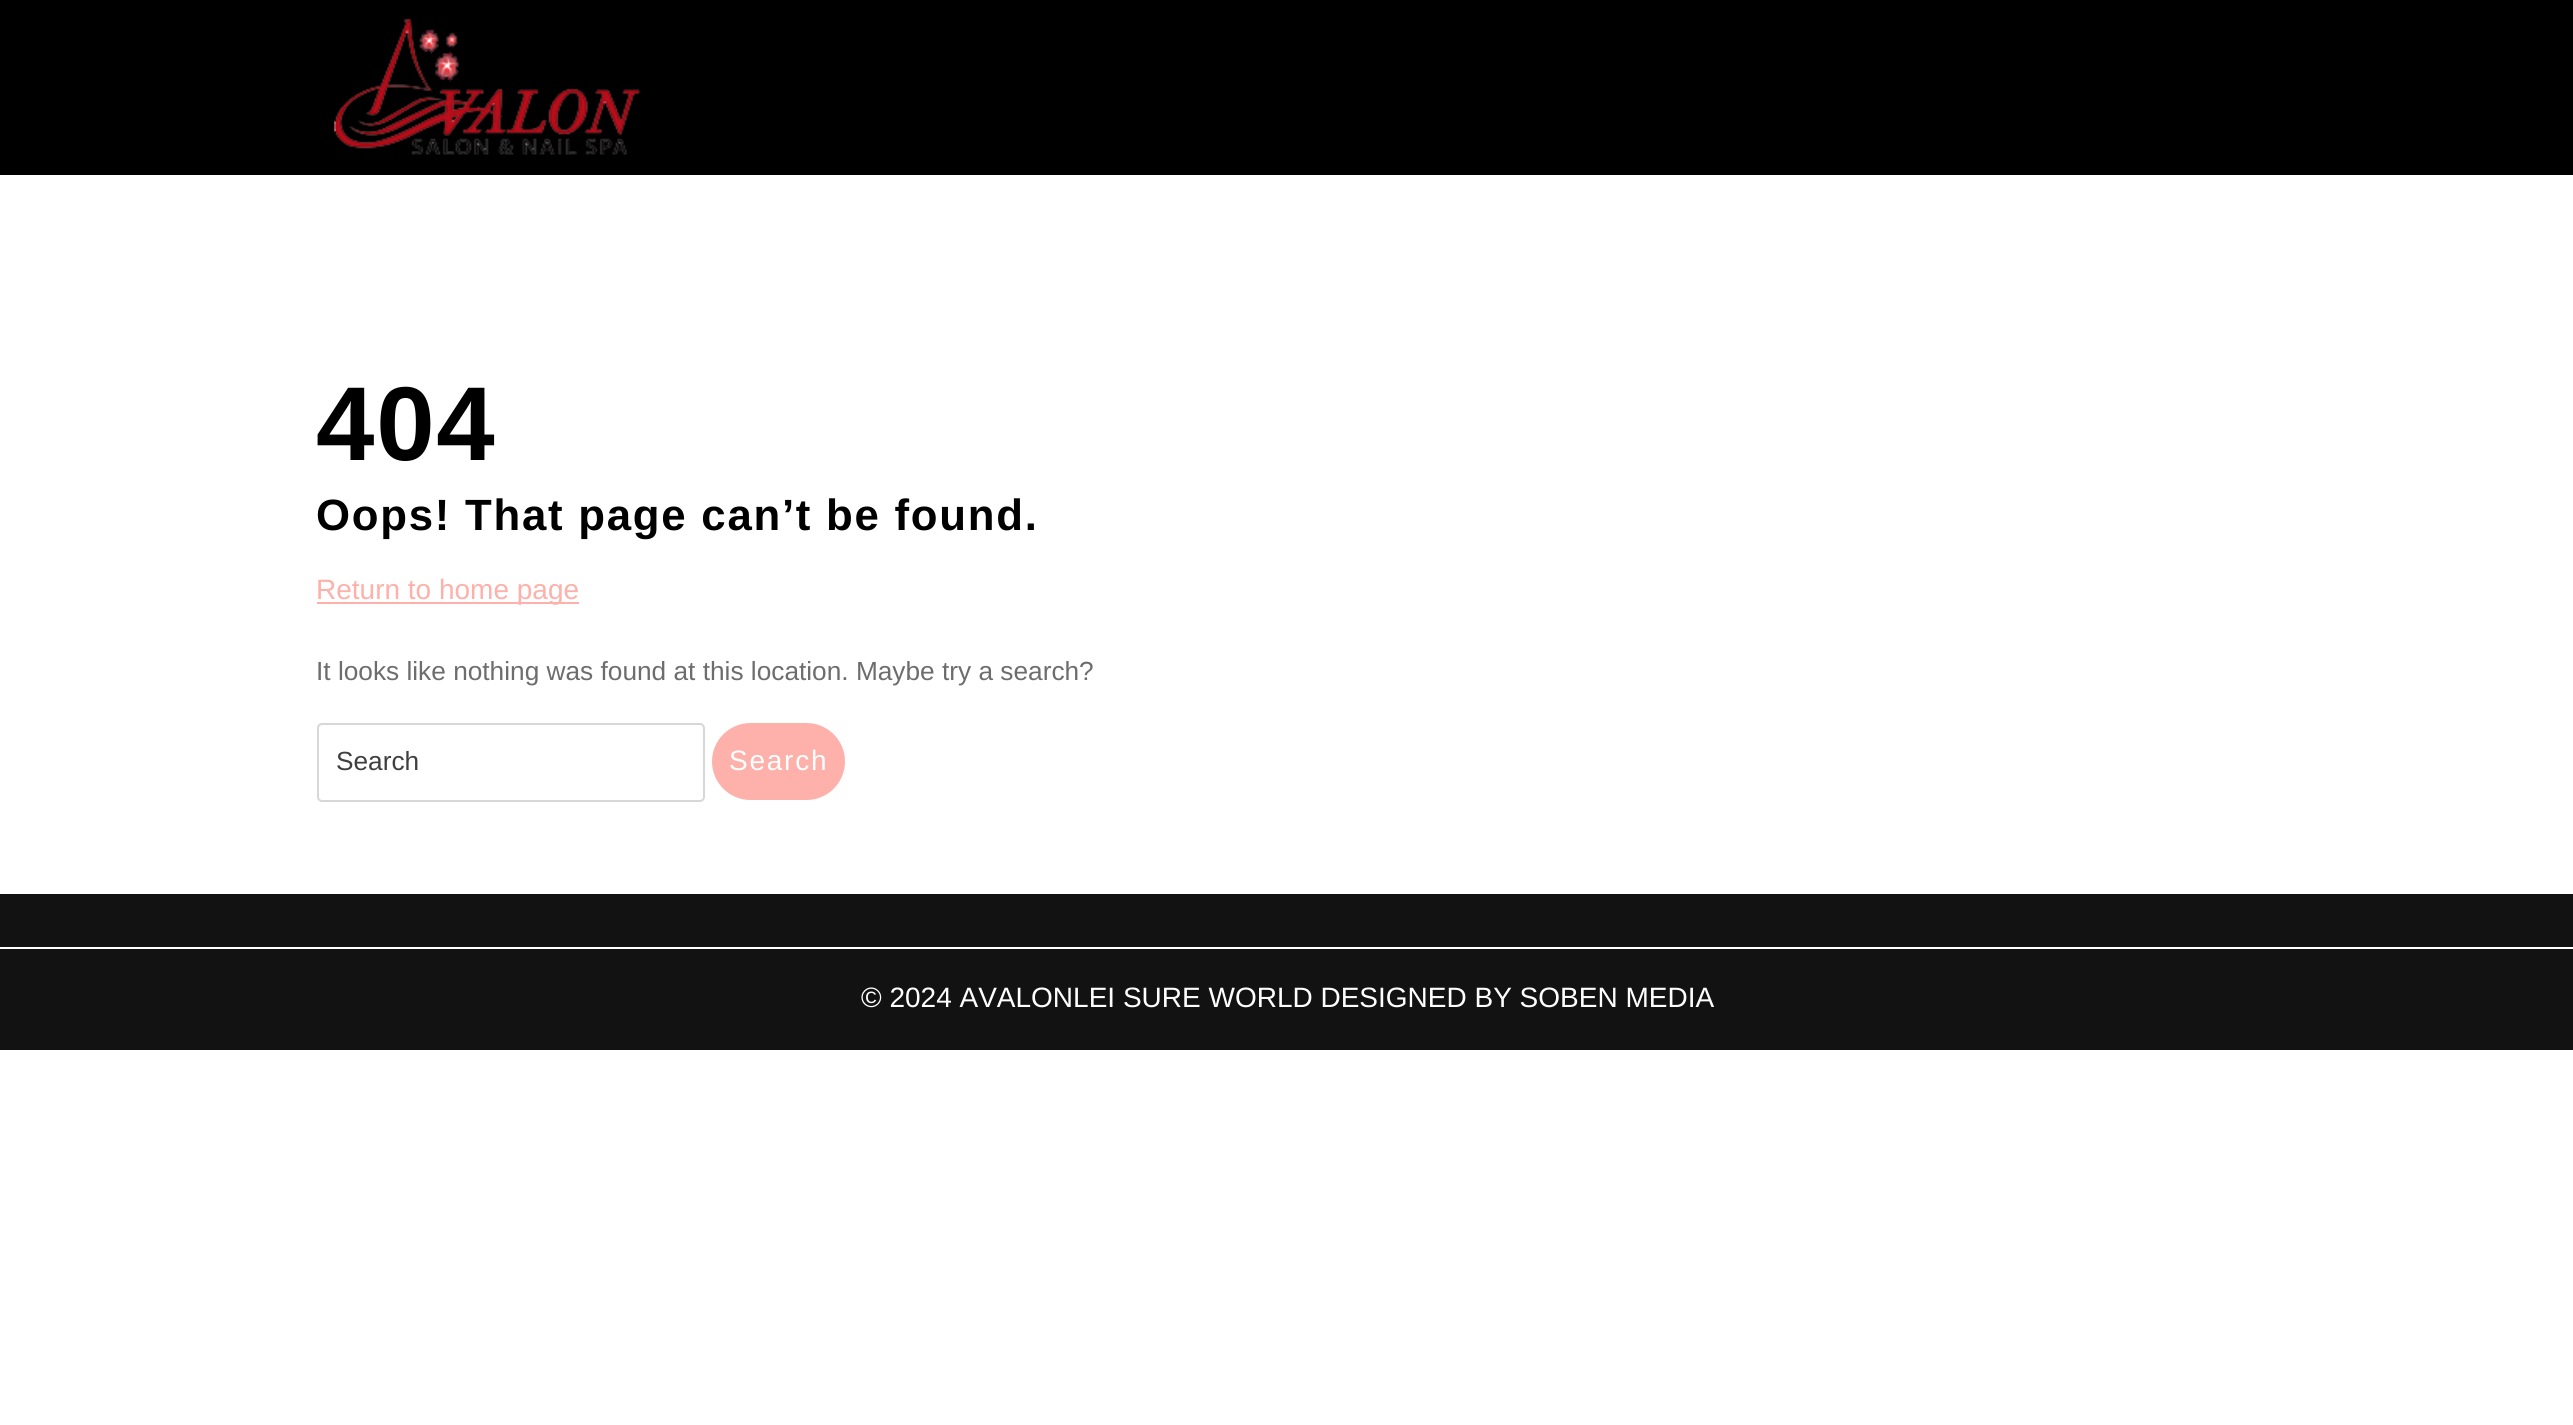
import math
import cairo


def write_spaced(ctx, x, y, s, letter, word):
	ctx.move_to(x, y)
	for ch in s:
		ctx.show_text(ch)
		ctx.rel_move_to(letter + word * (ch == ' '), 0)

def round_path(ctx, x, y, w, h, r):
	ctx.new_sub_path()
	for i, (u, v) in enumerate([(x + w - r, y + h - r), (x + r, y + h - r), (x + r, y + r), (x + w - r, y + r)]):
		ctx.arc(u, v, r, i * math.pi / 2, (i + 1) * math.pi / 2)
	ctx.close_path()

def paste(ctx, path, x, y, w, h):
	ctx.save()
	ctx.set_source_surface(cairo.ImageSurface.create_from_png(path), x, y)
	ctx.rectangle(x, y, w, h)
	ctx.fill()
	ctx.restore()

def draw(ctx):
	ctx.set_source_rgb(1, 1, 1)
	ctx.paint()
	ctx.set_source_rgb(0, 0, 0)
	ctx.rectangle(0, 0, 2573, 175)
	ctx.fill()
	paste(ctx, 'media/1.png', 334, 18, 307, 137)
	ctx.select_font_face('Liberation Sans', cairo.FONT_SLANT_NORMAL, cairo.FONT_WEIGHT_BOLD)
	ctx.set_font_size(105)
	write_spaced(ctx, 316, 460, '404', 1.75, 0)
	ctx.set_font_size(43.75)
	write_spaced(ctx, 316, 530, 'Oops! That page can’t be found.', 1.75, 0)
	ctx.set_source_rgb(0.992, 0.694, 0.667)
	ctx.rectangle(317, 602, 262, 2)
	ctx.fill()
	ctx.select_font_face('Liberation Sans')
	ctx.set_font_size(28)
	ctx.move_to(316, 599)
	ctx.show_text('Return to home page')
	ctx.set_font_size(26.25)
	ctx.set_source_rgb(0.431, 0.427, 0.427)
	ctx.move_to(316, 680)
	ctx.show_text('It looks like nothing was found at this location. Maybe try a search?')
	round_path(ctx, 318, 724, 386, 77, 4)
	ctx.set_source_rgb(0.843, 0.843, 0.843)
	ctx.stroke()
	ctx.set_source_rgb(0.247, 0.247, 0.247)
	ctx.move_to(336, 770)
	ctx.show_text('Search')
	ctx.set_source_rgb(0.992, 0.694, 0.667)
	round_path(ctx, 712, 723, 133, 77, 38.5)
	ctx.fill()
	ctx.set_font_size(28)
	ctx.set_source_rgb(1, 1, 1)
	write_spaced(ctx, 729, 770, 'Search', 1.75, 0)
	ctx.set_source_rgb(0.071, 0.071, 0.071)
	ctx.rectangle(0, 894, 2573, 156)
	ctx.fill()
	ctx.set_source_rgb(1, 1, 1)
	ctx.rectangle(0, 947, 2573, 2)
	ctx.fill()
	ctx.move_to(861, 1007)
	ctx.show_text('© 2024 AVALONLEI SURE WORLD DESIGNED BY SOBEN MEDIA')


surface = cairo.ImageSurface(cairo.FORMAT_RGB24, 2573, 1425)
ctx = cairo.Context(surface)
options = cairo.FontOptions()
options.set_hint_metrics(cairo.HINT_METRICS_OFF)
options.set_hint_style(cairo.HINT_STYLE_NONE)
ctx.set_font_options(options)
ctx.set_miter_limit(4)
draw(ctx)
surface.write_to_png('image.png')
